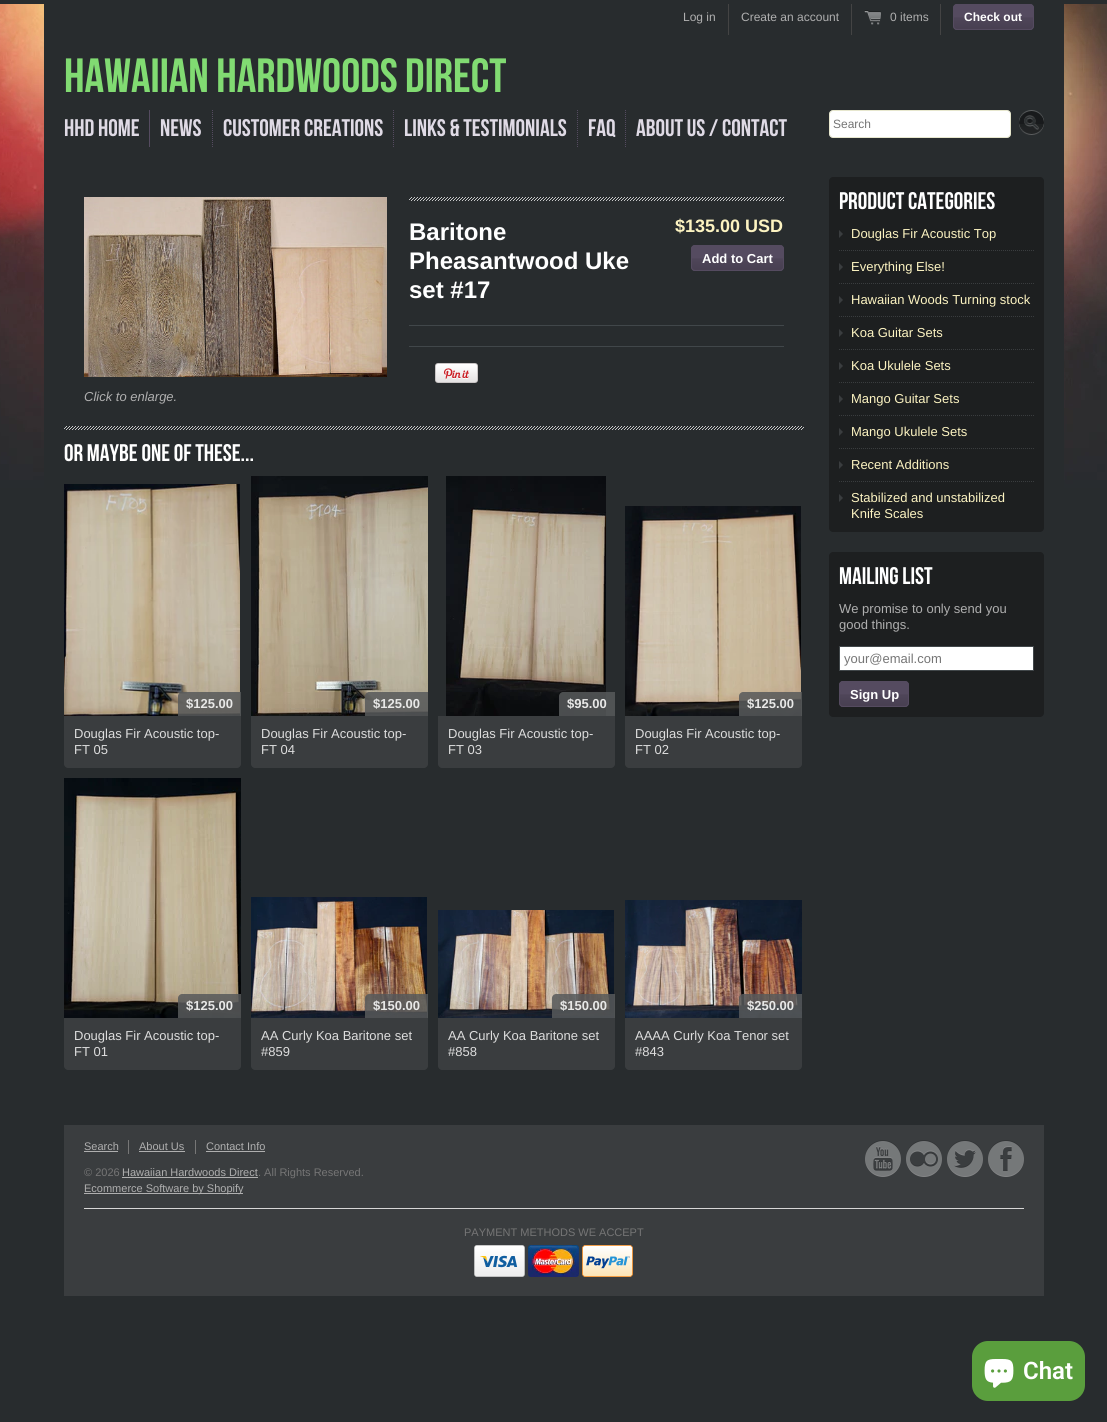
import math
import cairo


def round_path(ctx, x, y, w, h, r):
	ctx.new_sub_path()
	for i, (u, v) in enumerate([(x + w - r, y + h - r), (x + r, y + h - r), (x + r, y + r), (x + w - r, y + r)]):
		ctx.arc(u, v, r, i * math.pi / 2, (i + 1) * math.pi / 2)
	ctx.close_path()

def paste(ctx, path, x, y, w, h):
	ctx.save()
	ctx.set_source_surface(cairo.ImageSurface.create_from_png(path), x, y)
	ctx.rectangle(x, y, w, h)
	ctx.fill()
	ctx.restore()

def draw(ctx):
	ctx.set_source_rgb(0.157, 0.173, 0.18)
	ctx.paint()
	paste(ctx, 'media/1.png', 0, 4, 1107, 484)
	ctx.set_source_rgb(0.157, 0.173, 0.18)
	ctx.rectangle(44, 4, 1020, 484)
	ctx.fill()
	ctx.set_source_rgb(0.267, 0.267, 0.267)
	ctx.rectangle(728, 4, 1, 31)
	ctx.fill()
	ctx.select_font_face('Liberation Sans')
	ctx.set_font_size(12)
	ctx.set_source_rgb(0.686, 0.686, 0.686)
	ctx.move_to(683, 21)
	ctx.show_text('Log in')
	ctx.set_source_rgb(0.267, 0.267, 0.267)
	ctx.rectangle(851, 4, 1, 31)
	ctx.fill()
	ctx.set_source_rgb(0.686, 0.686, 0.686)
	ctx.move_to(741, 21)
	ctx.show_text('Create an account')
	ctx.set_source_rgb(0.267, 0.267, 0.267)
	ctx.rectangle(940, 4, 1, 31)
	ctx.fill()
	paste(ctx, 'media/2.png', 864, 10, 17, 15)
	ctx.set_source_rgb(0.686, 0.686, 0.686)
	ctx.move_to(890, 21)
	ctx.show_text('0 items')
	ctx.set_source_rgb(0.333, 0.294, 0.376)
	round_path(ctx, 953, 4, 81, 26, 4)
	ctx.fill()
	paste(ctx, 'media/3.png', 953, 17, 81, 12)
	round_path(ctx, 953.5, 4.5, 80, 25, 3.5)
	ctx.set_line_width(1)
	ctx.stroke()
	ctx.select_font_face('Liberation Sans', cairo.FONT_SLANT_NORMAL, cairo.FONT_WEIGHT_BOLD)
	ctx.set_source_rgb(1, 1, 1)
	ctx.move_to(964, 21)
	ctx.show_text('Check out')
	ctx.select_font_face('Bebas Neue')
	ctx.set_font_size(48)
	ctx.set_source_rgb(0.506, 0.859, 0.447)
	ctx.move_to(64, 92)
	ctx.show_text('Hawaiian Hardwoods Direct')
	ctx.set_source_rgb(0.333, 0.294, 0.376)
	ctx.rectangle(149, 110, 1, 37)
	ctx.fill()
	ctx.set_font_size(24)
	ctx.set_source_rgb(0.875, 0.855, 0.898)
	ctx.move_to(64, 136)
	ctx.show_text('HHD Home')
	ctx.new_path()
	ctx.move_to(212.5, 110)
	ctx.line_to(212.5, 147)
	ctx.set_source_rgb(0.333, 0.294, 0.376)
	ctx.set_dash([1, 1])
	ctx.stroke()
	ctx.set_source_rgb(0.875, 0.855, 0.898)
	ctx.move_to(160, 136)
	ctx.show_text('News')
	ctx.new_path()
	ctx.move_to(393.5, 110)
	ctx.line_to(393.5, 147)
	ctx.set_source_rgb(0.333, 0.294, 0.376)
	ctx.stroke()
	ctx.set_source_rgb(0.875, 0.855, 0.898)
	ctx.move_to(223, 136)
	ctx.show_text('Customer Creations')
	ctx.new_path()
	ctx.move_to(577.5, 110)
	ctx.line_to(577.5, 147)
	ctx.set_source_rgb(0.333, 0.294, 0.376)
	ctx.stroke()
	ctx.set_source_rgb(0.875, 0.855, 0.898)
	ctx.move_to(404, 136)
	ctx.show_text('Links & Testimonials')
	ctx.new_path()
	ctx.move_to(625.5, 110)
	ctx.line_to(625.5, 147)
	ctx.set_source_rgb(0.333, 0.294, 0.376)
	ctx.stroke()
	ctx.set_source_rgb(0.875, 0.855, 0.898)
	ctx.move_to(588, 136)
	ctx.show_text('FAQ')
	ctx.move_to(636, 136)
	ctx.show_text('About Us / Contact')
	ctx.set_source_rgb(1, 1, 1)
	round_path(ctx, 829.5, 110.5, 181, 27, 3.5)
	ctx.fill_preserve()
	ctx.set_source_rgb(0.906, 0.906, 0.808)
	ctx.set_dash([])
	ctx.stroke()
	ctx.select_font_face('Liberation Sans')
	ctx.set_font_size(12)
	ctx.set_source_rgb(0.459, 0.459, 0.459)
	ctx.move_to(833, 128)
	ctx.show_text('Search')
	paste(ctx, 'media/4.png', 1019, 110, 25, 25)
	paste(ctx, 'media/5.png', 409, 197, 375, 4)
	ctx.set_source_rgb(0.255, 0.278, 0.29)
	ctx.rectangle(409, 325, 375, 1)
	ctx.fill()
	ctx.select_font_face('Liberation Sans', cairo.FONT_SLANT_NORMAL, cairo.FONT_WEIGHT_BOLD)
	ctx.set_font_size(24)
	ctx.set_source_rgb(1, 1, 1)
	for x, y, s in [
		(409, 240, 'Baritone'),
		(409, 269, 'Pheasantwood Uke'),
		(409, 298, 'set #17'),
	]:
		ctx.move_to(x, y)
		ctx.show_text(s)
	ctx.set_font_size(18)
	ctx.set_source_rgb(0.988, 0.953, 0.757)
	ctx.move_to(675, 232)
	ctx.show_text('$135.00 USD')
	ctx.set_source_rgb(0.333, 0.294, 0.376)
	round_path(ctx, 691, 245, 93, 26, 4)
	ctx.fill()
	paste(ctx, 'media/6.png', 691, 258, 93, 12)
	round_path(ctx, 691.5, 245.5, 92, 25, 3.5)
	ctx.stroke()
	ctx.set_font_size(13)
	ctx.set_source_rgb(1, 1, 1)
	ctx.move_to(702, 263)
	ctx.show_text('Add to Cart')
	ctx.set_source_rgb(0.255, 0.278, 0.29)
	ctx.rectangle(409, 346, 375, 1)
	ctx.fill()
	paste(ctx, 'media/7.png', 435, 363, 43, 20)
	paste(ctx, 'media/8.png', 84, 197, 303, 180)
	ctx.select_font_face('Liberation Sans', cairo.FONT_SLANT_ITALIC)
	ctx.set_source_rgb(0.686, 0.686, 0.686)
	ctx.move_to(84, 401)
	ctx.show_text('Click to enlarge.')
	paste(ctx, 'media/9.png', 64, 426, 740, 4)
	ctx.select_font_face('Bebas Neue')
	ctx.set_font_size(24)
	ctx.set_source_rgb(1, 1, 1)
	ctx.move_to(64, 461)
	ctx.show_text('Or Maybe One Of These...')
	paste(ctx, 'media/10.png', 64, 484, 176, 232)
	ctx.set_source_rgba(0.341, 0.353, 0.357, 0.85)
	ctx.new_path()
	ctx.move_to(182, 692)
	ctx.line_to(241, 692)
	ctx.line_to(241, 716)
	ctx.line_to(178, 716)
	ctx.line_to(178, 696)
	ctx.curve_to(178, 694, 180, 692, 182, 692)
	ctx.close_path()
	ctx.fill()
	ctx.select_font_face('Liberation Sans', cairo.FONT_SLANT_NORMAL, cairo.FONT_WEIGHT_BOLD)
	ctx.set_font_size(13)
	ctx.set_source_rgb(0.91, 0.91, 0.906)
	ctx.move_to(186, 708)
	ctx.show_text('$125.00')
	ctx.set_source_rgb(0.227, 0.239, 0.247)
	ctx.new_path()
	ctx.move_to(64, 716)
	ctx.line_to(241, 716)
	ctx.line_to(241, 764)
	ctx.curve_to(241, 766, 239, 768, 237, 768)
	ctx.line_to(68, 768)
	ctx.curve_to(66, 768, 64, 766, 64, 764)
	ctx.close_path()
	ctx.fill()
	ctx.select_font_face('Liberation Sans')
	ctx.set_source_rgb(0.867, 0.867, 0.867)
	ctx.move_to(74, 738)
	ctx.show_text('Douglas Fir Acoustic top-')
	ctx.move_to(74, 754)
	ctx.show_text('FT 05')
	paste(ctx, 'media/11.png', 251, 476, 177, 240)
	ctx.set_source_rgba(0.341, 0.353, 0.357, 0.85)
	ctx.new_path()
	ctx.move_to(369, 692)
	ctx.line_to(428, 692)
	ctx.line_to(428, 716)
	ctx.line_to(365, 716)
	ctx.line_to(365, 696)
	ctx.curve_to(365, 694, 367, 692, 369, 692)
	ctx.close_path()
	ctx.fill()
	ctx.select_font_face('Liberation Sans', cairo.FONT_SLANT_NORMAL, cairo.FONT_WEIGHT_BOLD)
	ctx.set_source_rgb(0.91, 0.91, 0.906)
	ctx.move_to(373, 708)
	ctx.show_text('$125.00')
	ctx.set_source_rgb(0.227, 0.239, 0.247)
	ctx.new_path()
	ctx.move_to(251, 716)
	ctx.line_to(428, 716)
	ctx.line_to(428, 764)
	ctx.curve_to(428, 766, 426, 768, 424, 768)
	ctx.line_to(255, 768)
	ctx.curve_to(253, 768, 251, 766, 251, 764)
	ctx.close_path()
	ctx.fill()
	ctx.select_font_face('Liberation Sans')
	ctx.set_source_rgb(0.867, 0.867, 0.867)
	ctx.move_to(261, 738)
	ctx.show_text('Douglas Fir Acoustic top-')
	ctx.move_to(261, 754)
	ctx.show_text('FT 04')
	paste(ctx, 'media/12.png', 446, 476, 160, 240)
	ctx.set_source_rgba(0.341, 0.353, 0.357, 0.85)
	ctx.new_path()
	ctx.move_to(563, 692)
	ctx.line_to(615, 692)
	ctx.line_to(615, 716)
	ctx.line_to(559, 716)
	ctx.line_to(559, 696)
	ctx.curve_to(559, 694, 561, 692, 563, 692)
	ctx.close_path()
	ctx.fill()
	ctx.select_font_face('Liberation Sans', cairo.FONT_SLANT_NORMAL, cairo.FONT_WEIGHT_BOLD)
	ctx.set_source_rgb(0.91, 0.91, 0.906)
	ctx.move_to(567, 708)
	ctx.show_text('$95.00')
	ctx.set_source_rgb(0.227, 0.239, 0.247)
	ctx.new_path()
	ctx.move_to(438, 716)
	ctx.line_to(615, 716)
	ctx.line_to(615, 764)
	ctx.curve_to(615, 766, 613, 768, 611, 768)
	ctx.line_to(442, 768)
	ctx.curve_to(440, 768, 438, 766, 438, 764)
	ctx.close_path()
	ctx.fill()
	ctx.select_font_face('Liberation Sans')
	ctx.set_source_rgb(0.867, 0.867, 0.867)
	ctx.move_to(448, 738)
	ctx.show_text('Douglas Fir Acoustic top-')
	ctx.move_to(448, 754)
	ctx.show_text('FT 03')
	paste(ctx, 'media/13.png', 625, 506, 176, 210)
	ctx.set_source_rgba(0.341, 0.353, 0.357, 0.85)
	ctx.new_path()
	ctx.move_to(743, 692)
	ctx.line_to(802, 692)
	ctx.line_to(802, 716)
	ctx.line_to(739, 716)
	ctx.line_to(739, 696)
	ctx.curve_to(739, 694, 741, 692, 743, 692)
	ctx.close_path()
	ctx.fill()
	ctx.select_font_face('Liberation Sans', cairo.FONT_SLANT_NORMAL, cairo.FONT_WEIGHT_BOLD)
	ctx.set_source_rgb(0.91, 0.91, 0.906)
	ctx.move_to(747, 708)
	ctx.show_text('$125.00')
	ctx.set_source_rgb(0.227, 0.239, 0.247)
	ctx.new_path()
	ctx.move_to(625, 716)
	ctx.line_to(802, 716)
	ctx.line_to(802, 764)
	ctx.curve_to(802, 766, 800, 768, 798, 768)
	ctx.line_to(629, 768)
	ctx.curve_to(627, 768, 625, 766, 625, 764)
	ctx.close_path()
	ctx.fill()
	ctx.select_font_face('Liberation Sans')
	ctx.set_source_rgb(0.867, 0.867, 0.867)
	ctx.move_to(635, 738)
	ctx.show_text('Douglas Fir Acoustic top-')
	ctx.move_to(635, 754)
	ctx.show_text('FT 02')
	paste(ctx, 'media/14.png', 64, 778, 177, 240)
	ctx.set_source_rgba(0.341, 0.353, 0.357, 0.85)
	ctx.new_path()
	ctx.move_to(182, 994)
	ctx.line_to(241, 994)
	ctx.line_to(241, 1018)
	ctx.line_to(178, 1018)
	ctx.line_to(178, 998)
	ctx.curve_to(178, 996, 180, 994, 182, 994)
	ctx.close_path()
	ctx.fill()
	ctx.select_font_face('Liberation Sans', cairo.FONT_SLANT_NORMAL, cairo.FONT_WEIGHT_BOLD)
	ctx.set_source_rgb(0.91, 0.91, 0.906)
	ctx.move_to(186, 1010)
	ctx.show_text('$125.00')
	ctx.set_source_rgb(0.227, 0.239, 0.247)
	ctx.new_path()
	ctx.move_to(64, 1018)
	ctx.line_to(241, 1018)
	ctx.line_to(241, 1066)
	ctx.curve_to(241, 1068, 239, 1070, 237, 1070)
	ctx.line_to(68, 1070)
	ctx.curve_to(66, 1070, 64, 1068, 64, 1066)
	ctx.close_path()
	ctx.fill()
	ctx.select_font_face('Liberation Sans')
	ctx.set_source_rgb(0.867, 0.867, 0.867)
	ctx.move_to(74, 1040)
	ctx.show_text('Douglas Fir Acoustic top-')
	ctx.move_to(74, 1056)
	ctx.show_text('FT 01')
	paste(ctx, 'media/15.png', 251, 897, 176, 121)
	ctx.set_source_rgba(0.341, 0.353, 0.357, 0.85)
	ctx.new_path()
	ctx.move_to(369, 994)
	ctx.line_to(428, 994)
	ctx.line_to(428, 1018)
	ctx.line_to(365, 1018)
	ctx.line_to(365, 998)
	ctx.curve_to(365, 996, 367, 994, 369, 994)
	ctx.close_path()
	ctx.fill()
	ctx.select_font_face('Liberation Sans', cairo.FONT_SLANT_NORMAL, cairo.FONT_WEIGHT_BOLD)
	ctx.set_source_rgb(0.91, 0.91, 0.906)
	ctx.move_to(373, 1010)
	ctx.show_text('$150.00')
	ctx.set_source_rgb(0.227, 0.239, 0.247)
	ctx.new_path()
	ctx.move_to(251, 1018)
	ctx.line_to(428, 1018)
	ctx.line_to(428, 1066)
	ctx.curve_to(428, 1068, 426, 1070, 424, 1070)
	ctx.line_to(255, 1070)
	ctx.curve_to(253, 1070, 251, 1068, 251, 1066)
	ctx.close_path()
	ctx.fill()
	ctx.select_font_face('Liberation Sans')
	ctx.set_source_rgb(0.867, 0.867, 0.867)
	ctx.move_to(261, 1040)
	ctx.show_text('AA Curly Koa Baritone set')
	ctx.move_to(261, 1056)
	ctx.show_text('#859')
	paste(ctx, 'media/16.png', 438, 910, 176, 108)
	ctx.set_source_rgba(0.341, 0.353, 0.357, 0.85)
	ctx.new_path()
	ctx.move_to(556, 994)
	ctx.line_to(615, 994)
	ctx.line_to(615, 1018)
	ctx.line_to(552, 1018)
	ctx.line_to(552, 998)
	ctx.curve_to(552, 996, 554, 994, 556, 994)
	ctx.close_path()
	ctx.fill()
	ctx.select_font_face('Liberation Sans', cairo.FONT_SLANT_NORMAL, cairo.FONT_WEIGHT_BOLD)
	ctx.set_source_rgb(0.91, 0.91, 0.906)
	ctx.move_to(560, 1010)
	ctx.show_text('$150.00')
	ctx.set_source_rgb(0.227, 0.239, 0.247)
	ctx.new_path()
	ctx.move_to(438, 1018)
	ctx.line_to(615, 1018)
	ctx.line_to(615, 1066)
	ctx.curve_to(615, 1068, 613, 1070, 611, 1070)
	ctx.line_to(442, 1070)
	ctx.curve_to(440, 1070, 438, 1068, 438, 1066)
	ctx.close_path()
	ctx.fill()
	ctx.select_font_face('Liberation Sans')
	ctx.set_source_rgb(0.867, 0.867, 0.867)
	ctx.move_to(448, 1040)
	ctx.show_text('AA Curly Koa Baritone set')
	ctx.move_to(448, 1056)
	ctx.show_text('#858')
	paste(ctx, 'media/17.png', 625, 900, 177, 118)
	ctx.set_source_rgba(0.341, 0.353, 0.357, 0.85)
	ctx.new_path()
	ctx.move_to(743, 994)
	ctx.line_to(802, 994)
	ctx.line_to(802, 1018)
	ctx.line_to(739, 1018)
	ctx.line_to(739, 998)
	ctx.curve_to(739, 996, 741, 994, 743, 994)
	ctx.close_path()
	ctx.fill()
	ctx.select_font_face('Liberation Sans', cairo.FONT_SLANT_NORMAL, cairo.FONT_WEIGHT_BOLD)
	ctx.set_source_rgb(0.91, 0.91, 0.906)
	ctx.move_to(747, 1010)
	ctx.show_text('$250.00')
	ctx.set_source_rgb(0.227, 0.239, 0.247)
	ctx.new_path()
	ctx.move_to(625, 1018)
	ctx.line_to(802, 1018)
	ctx.line_to(802, 1066)
	ctx.curve_to(802, 1068, 800, 1070, 798, 1070)
	ctx.line_to(629, 1070)
	ctx.curve_to(627, 1070, 625, 1068, 625, 1066)
	ctx.close_path()
	ctx.fill()
	ctx.select_font_face('Liberation Sans')
	ctx.set_source_rgb(0.867, 0.867, 0.867)
	ctx.move_to(635, 1040)
	ctx.show_text('AAAA Curly Koa Tenor set')
	ctx.move_to(635, 1056)
	ctx.show_text('#843')
	ctx.set_source_rgb(0.114, 0.122, 0.125)
	round_path(ctx, 829, 177, 215, 355, 4)
	ctx.fill()
	ctx.select_font_face('Bebas Neue')
	ctx.set_font_size(24)
	ctx.set_source_rgb(1, 1, 1)
	ctx.move_to(839, 209)
	ctx.show_text('Product Categories')
	ctx.new_path()
	ctx.move_to(839, 250.5)
	ctx.line_to(1034, 250.5)
	ctx.set_source_rgb(0.227, 0.239, 0.247)
	ctx.set_dash([1, 1])
	ctx.stroke()
	ctx.new_path()
	ctx.move_to(839, 238)
	ctx.line_to(839, 230)
	ctx.line_to(843, 234)
	ctx.close_path()
	ctx.move_to(839, 271)
	ctx.line_to(839, 263)
	ctx.line_to(843, 267)
	ctx.close_path()
	ctx.fill()
	ctx.select_font_face('Liberation Sans')
	ctx.set_font_size(13)
	ctx.set_source_rgb(0.988, 0.953, 0.757)
	ctx.move_to(851, 238)
	ctx.show_text('Douglas Fir Acoustic Top')
	ctx.move_to(851, 271)
	ctx.show_text('Everything Else!')
	ctx.new_path()
	ctx.move_to(839, 283.5)
	ctx.line_to(1034, 283.5)
	ctx.set_source_rgb(0.227, 0.239, 0.247)
	ctx.stroke()
	ctx.new_path()
	ctx.move_to(839, 316.5)
	ctx.line_to(1034, 316.5)
	ctx.stroke()
	ctx.new_path()
	ctx.move_to(839, 304)
	ctx.line_to(839, 296)
	ctx.line_to(843, 300)
	ctx.close_path()
	ctx.move_to(839, 337)
	ctx.line_to(839, 329)
	ctx.line_to(843, 333)
	ctx.close_path()
	ctx.fill()
	ctx.set_source_rgb(0.988, 0.953, 0.757)
	ctx.move_to(851, 304)
	ctx.show_text('Hawaiian Woods Turning stock')
	ctx.move_to(851, 337)
	ctx.show_text('Koa Guitar Sets')
	ctx.new_path()
	ctx.move_to(839, 349.5)
	ctx.line_to(1034, 349.5)
	ctx.set_source_rgb(0.227, 0.239, 0.247)
	ctx.stroke()
	ctx.new_path()
	ctx.move_to(839, 382.5)
	ctx.line_to(1034, 382.5)
	ctx.stroke()
	ctx.new_path()
	ctx.move_to(839, 370)
	ctx.line_to(839, 362)
	ctx.line_to(843, 366)
	ctx.close_path()
	ctx.move_to(839, 403)
	ctx.line_to(839, 395)
	ctx.line_to(843, 399)
	ctx.close_path()
	ctx.fill()
	ctx.set_source_rgb(0.988, 0.953, 0.757)
	ctx.move_to(851, 370)
	ctx.show_text('Koa Ukulele Sets')
	ctx.move_to(851, 403)
	ctx.show_text('Mango Guitar Sets')
	ctx.new_path()
	ctx.move_to(839, 415.5)
	ctx.line_to(1034, 415.5)
	ctx.set_source_rgb(0.227, 0.239, 0.247)
	ctx.stroke()
	ctx.new_path()
	ctx.move_to(839, 448.5)
	ctx.line_to(1034, 448.5)
	ctx.stroke()
	ctx.new_path()
	ctx.move_to(839, 436)
	ctx.line_to(839, 428)
	ctx.line_to(843, 432)
	ctx.close_path()
	ctx.move_to(839, 469)
	ctx.line_to(839, 461)
	ctx.line_to(843, 465)
	ctx.close_path()
	ctx.fill()
	ctx.set_source_rgb(0.988, 0.953, 0.757)
	ctx.move_to(851, 436)
	ctx.show_text('Mango Ukulele Sets')
	ctx.move_to(851, 469)
	ctx.show_text('Recent Additions')
	ctx.new_path()
	ctx.move_to(839, 481.5)
	ctx.line_to(1034, 481.5)
	ctx.set_source_rgb(0.227, 0.239, 0.247)
	ctx.stroke()
	ctx.new_path()
	ctx.move_to(839, 502)
	ctx.line_to(839, 494)
	ctx.line_to(843, 498)
	ctx.close_path()
	ctx.fill()
	ctx.set_source_rgb(0.988, 0.953, 0.757)
	ctx.move_to(851, 502)
	ctx.show_text('Stabilized and unstabilized')
	ctx.move_to(851, 518)
	ctx.show_text('Knife Scales')
	ctx.set_source_rgb(0.114, 0.122, 0.125)
	round_path(ctx, 829, 552, 215, 165, 4)
	ctx.fill()
	ctx.select_font_face('Bebas Neue')
	ctx.set_font_size(24)
	ctx.set_source_rgb(1, 1, 1)
	ctx.move_to(839, 584)
	ctx.show_text('Mailing List')
	ctx.select_font_face('Liberation Sans')
	ctx.set_font_size(13)
	ctx.set_source_rgb(0.686, 0.686, 0.686)
	ctx.move_to(839, 613)
	ctx.show_text('We promise to only send you')
	ctx.move_to(839, 629)
	ctx.show_text('good things.')
	ctx.set_source_rgb(1, 1, 1)
	ctx.rectangle(839.5, 646.5, 194, 24)
	ctx.fill_preserve()
	ctx.set_source_rgb(0.255, 0.278, 0.29)
	ctx.set_dash([])
	ctx.stroke()
	ctx.set_source_rgb(0.459, 0.459, 0.459)
	ctx.move_to(844, 663)
	ctx.show_text('your@email.com')
	ctx.set_source_rgb(0.333, 0.294, 0.376)
	round_path(ctx, 839, 681, 70, 26, 4)
	ctx.fill()
	paste(ctx, 'media/18.png', 839, 694, 70, 12)
	round_path(ctx, 839.5, 681.5, 69, 25, 3.5)
	ctx.stroke()
	ctx.select_font_face('Liberation Sans', cairo.FONT_SLANT_NORMAL, cairo.FONT_WEIGHT_BOLD)
	ctx.set_source_rgb(1, 1, 1)
	ctx.move_to(850, 699)
	ctx.show_text('Sign Up')
	ctx.set_source_rgb(0.227, 0.239, 0.247)
	ctx.rectangle(64, 1125, 980, 171)
	ctx.fill()
	ctx.select_font_face('Liberation Sans')
	ctx.set_font_size(11)
	ctx.set_source_rgb(0.686, 0.686, 0.686)
	ctx.move_to(84, 1150)
	ctx.show_text('Search')
	ctx.rectangle(84, 1151, 34, 1)
	ctx.fill()
	ctx.set_source_rgb(0.467, 0.467, 0.467)
	ctx.rectangle(128, 1140, 1, 14)
	ctx.fill()
	ctx.set_source_rgb(0.686, 0.686, 0.686)
	ctx.move_to(139, 1150)
	ctx.show_text('About Us')
	ctx.rectangle(139, 1151, 46, 1)
	ctx.fill()
	ctx.set_source_rgb(0.467, 0.467, 0.467)
	ctx.rectangle(195, 1140, 1, 14)
	ctx.fill()
	ctx.set_source_rgb(0.686, 0.686, 0.686)
	ctx.move_to(206, 1150)
	ctx.show_text('Contact Info')
	ctx.rectangle(206, 1151, 59, 1)
	ctx.fill()
	ctx.set_source_rgb(0.459, 0.459, 0.459)
	ctx.move_to(84, 1176)
	ctx.show_text('© 2026')
	ctx.set_source_rgb(0.686, 0.686, 0.686)
	ctx.move_to(122, 1176)
	ctx.show_text('Hawaiian Hardwoods Direct')
	ctx.rectangle(122, 1177, 136, 1)
	ctx.fill()
	ctx.set_source_rgb(0.459, 0.459, 0.459)
	ctx.move_to(258, 1176)
	ctx.show_text('. All Rights Reserved.')
	ctx.set_source_rgb(0.686, 0.686, 0.686)
	ctx.rectangle(84, 1193, 159, 1)
	ctx.fill()
	ctx.move_to(84, 1192)
	ctx.show_text('Ecommerce Software by Shopify')
	paste(ctx, 'media/19.png', 865, 1140, 36, 37)
	paste(ctx, 'media/20.png', 906, 1140, 36, 37)
	paste(ctx, 'media/21.png', 947, 1140, 36, 37)
	paste(ctx, 'media/22.png', 988, 1140, 36, 37)
	ctx.set_source_rgb(0.843, 0.843, 0.843)
	ctx.rectangle(84, 1208, 940, 1)
	ctx.fill()
	ctx.set_source_rgb(0.459, 0.459, 0.459)
	ctx.move_to(464, 1236)
	ctx.show_text('PAYMENT METHODS WE ACCEPT')
	paste(ctx, 'media/23.png', 474, 1245, 51, 32)
	paste(ctx, 'media/24.png', 528, 1245, 51, 32)
	paste(ctx, 'media/25.png', 582, 1245, 51, 32)
	ctx.set_source_rgb(0.353, 0.62, 0.239)
	round_path(ctx, 972, 1341, 113, 60, 16)
	ctx.fill()
	paste(ctx, 'media/26.png', 984, 1359, 30, 29)
	ctx.select_font_face('Roboto SemiBold')
	ctx.set_font_size(24)
	ctx.set_source_rgb(1, 1, 1)
	ctx.move_to(1023, 1379)
	ctx.show_text('Chat')


surface = cairo.ImageSurface(cairo.FORMAT_RGB24, 1107, 1422)
ctx = cairo.Context(surface)
options = cairo.FontOptions()
options.set_hint_metrics(cairo.HINT_METRICS_OFF)
options.set_hint_style(cairo.HINT_STYLE_NONE)
ctx.set_font_options(options)
ctx.set_miter_limit(4)
draw(ctx)
surface.write_to_png('image.png')
